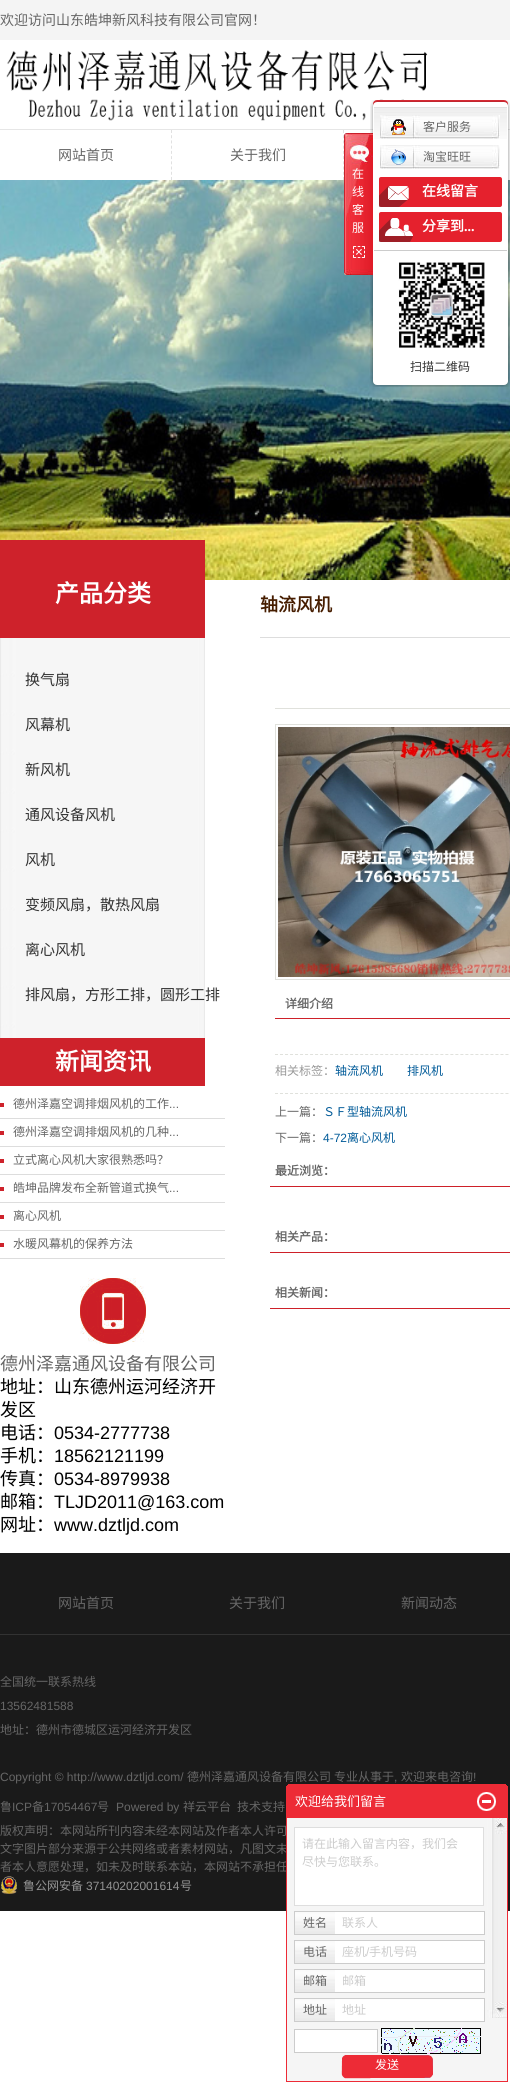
import math
import cairo


def round_path(ctx, x, y, w, h, r):
	ctx.new_sub_path()
	for i, (u, v) in enumerate([(x + w - r, y + h - r), (x + r, y + h - r), (x + r, y + r), (x + w - r, y + r)]):
		ctx.arc(u, v, r, i * math.pi / 2, (i + 1) * math.pi / 2)
	ctx.close_path()

def paste(ctx, path, x, y, w, h):
	ctx.save()
	ctx.set_source_surface(cairo.ImageSurface.create_from_png(path), x, y)
	ctx.rectangle(x, y, w, h)
	ctx.fill()
	ctx.restore()

def draw(ctx):
	ctx.set_source_rgb(1, 1, 1)
	ctx.paint()
	ctx.set_source_rgb(0.957, 0.957, 0.957)
	ctx.rectangle(0, 0, 510, 40)
	ctx.fill()
	ctx.select_font_face('Noto Sans CJK SC')
	ctx.set_font_size(14)
	ctx.set_source_rgb(0.4, 0.4, 0.4)
	ctx.move_to(0, 25)
	ctx.show_text('欢迎访问山东皓坤新风科技有限公司官网！')
	ctx.set_source_rgb(0.902, 0.902, 0.902)
	ctx.rectangle(0, 129, 510, 1)
	ctx.fill()
	paste(ctx, 'media/1.png', 6, 50, 422, 71)
	ctx.set_source_rgb(0.4, 0.4, 0.4)
	ctx.move_to(58, 160)
	ctx.show_text('网站首页')
	ctx.new_path()
	ctx.move_to(171.5, 130)
	ctx.line_to(171.5, 180)
	ctx.set_source_rgb(0.882, 0.882, 0.882)
	ctx.set_line_width(1)
	ctx.set_dash([3, 2.22])
	ctx.stroke()
	ctx.set_source_rgb(0.4, 0.4, 0.4)
	ctx.move_to(230, 160)
	ctx.show_text('关于我们')
	ctx.new_path()
	ctx.move_to(343.5, 130)
	ctx.line_to(343.5, 180)
	ctx.set_source_rgb(0.882, 0.882, 0.882)
	ctx.stroke()
	paste(ctx, 'media/14.png', 0, 180, 510, 400)
	paste(ctx, 'media/5.png', 370, 107, 140, 272)
	paste(ctx, 'media/2.png', 344, 133, 29, 142)
	ctx.set_font_size(12)
	ctx.set_source_rgb(1, 1, 1)
	for x, y, s in [
		(352, 178, '在'),
		(352, 196, '线'),
		(352, 214, '客'),
		(352, 232, '服'),
	]:
		ctx.move_to(x, y)
		ctx.show_text(s)
	paste(ctx, 'media/3.png', 353, 246, 12, 12)
	paste(ctx, 'media/4.png', 370, 100, 140, 7)
	paste(ctx, 'media/6.png', 374, 107, 133, 32)
	paste(ctx, 'media/7.png', 380, 115, 120, 24)
	paste(ctx, 'media/8.png', 391, 119, 15, 16)
	ctx.set_source_rgb(0.4, 0.4, 0.4)
	ctx.move_to(423, 131)
	ctx.show_text('客户服务')
	paste(ctx, 'media/7.png', 380, 145, 120, 24)
	paste(ctx, 'media/9.png', 391, 149, 15, 16)
	ctx.move_to(423, 161)
	ctx.show_text('淘宝旺旺')
	ctx.set_source_rgb(0.898, 0.129, 0.176)
	round_path(ctx, 379, 177, 123, 30, 2)
	ctx.fill()
	paste(ctx, 'media/10.png', 379, 186, 30, 21)
	ctx.select_font_face('Noto Sans CJK SC', cairo.FONT_SLANT_NORMAL, cairo.FONT_WEIGHT_BOLD)
	ctx.set_font_size(14)
	ctx.set_source_rgb(1, 1, 1)
	ctx.move_to(422, 196)
	ctx.show_text('在线留言')
	ctx.set_source_rgb(0.898, 0.129, 0.176)
	round_path(ctx, 379, 212, 123, 30, 2)
	ctx.fill()
	paste(ctx, 'media/11.png', 379, 218, 34, 24)
	ctx.set_source_rgb(1, 1, 1)
	ctx.move_to(422, 231)
	ctx.show_text('分享到')
	ctx.select_font_face('Liberation Serif', cairo.FONT_SLANT_NORMAL, cairo.FONT_WEIGHT_BOLD)
	ctx.move_to(464, 231)
	ctx.show_text('...')
	ctx.set_source_rgb(0.8, 0.8, 0.8)
	ctx.rectangle(374, 250, 133, 1)
	ctx.fill()
	paste(ctx, 'media/12.png', 398, 262, 87, 86)
	ctx.select_font_face('Noto Sans CJK SC')
	ctx.set_font_size(12)
	ctx.set_source_rgb(0.2, 0.2, 0.2)
	ctx.move_to(410, 371)
	ctx.show_text('扫描二维码')
	paste(ctx, 'media/13.png', 370, 379, 140, 8)
	ctx.set_source_rgb(0.808, 0.133, 0.169)
	ctx.rectangle(0, 540, 205, 98)
	ctx.fill()
	ctx.select_font_face('Noto Sans CJK SC', cairo.FONT_SLANT_NORMAL, cairo.FONT_WEIGHT_BOLD)
	ctx.set_font_size(24)
	ctx.set_source_rgb(1, 1, 1)
	ctx.move_to(55, 602)
	ctx.show_text('产品分类')
	paste(ctx, 'media/15.png', 0, 638, 205, 400)
	ctx.select_font_face('Noto Sans CJK SC')
	ctx.set_font_size(15)
	ctx.set_source_rgb(0.2, 0.2, 0.2)
	for x, y, s in [
		(25, 685, '换气扇'),
		(25, 730, '风幕机'),
		(25, 775, '新风机'),
		(25, 820, '通风设备风机'),
		(25, 865, '风机'),
		(25, 910, '变频风扇，散热风扇'),
		(25, 955, '离心风机'),
		(25, 1000, '排风扇，方形工排，圆形工排'),
	]:
		ctx.move_to(x, y)
		ctx.show_text(s)
	ctx.set_source_rgb(0.808, 0.133, 0.169)
	ctx.rectangle(0, 1038, 205, 48)
	ctx.fill()
	ctx.select_font_face('Noto Sans CJK SC', cairo.FONT_SLANT_NORMAL, cairo.FONT_WEIGHT_BOLD)
	ctx.set_font_size(24)
	ctx.set_source_rgb(1, 1, 1)
	ctx.move_to(55, 1070)
	ctx.show_text('新闻资讯')
	ctx.set_source_rgb(0.808, 0.133, 0.169)
	ctx.rectangle(0, 1103, 4, 4)
	ctx.fill()
	ctx.set_source_rgb(0.867, 0.867, 0.867)
	ctx.rectangle(0, 1118, 225, 1)
	ctx.fill()
	ctx.select_font_face('Noto Sans CJK SC')
	ctx.set_font_size(12)
	ctx.set_source_rgb(0.4, 0.4, 0.4)
	ctx.move_to(13, 1108)
	ctx.show_text('德州泽嘉空调排烟风机的工作')
	ctx.select_font_face('Liberation Sans')
	ctx.move_to(169, 1108)
	ctx.show_text('...')
	ctx.set_source_rgb(0.808, 0.133, 0.169)
	ctx.rectangle(0, 1131, 4, 4)
	ctx.fill()
	ctx.set_source_rgb(0.867, 0.867, 0.867)
	ctx.rectangle(0, 1146, 225, 1)
	ctx.fill()
	ctx.select_font_face('Noto Sans CJK SC')
	ctx.set_source_rgb(0.4, 0.4, 0.4)
	ctx.move_to(13, 1136)
	ctx.show_text('德州泽嘉空调排烟风机的几种')
	ctx.select_font_face('Liberation Sans')
	ctx.move_to(169, 1136)
	ctx.show_text('...')
	ctx.set_source_rgb(0.808, 0.133, 0.169)
	ctx.rectangle(0, 1159, 4, 4)
	ctx.fill()
	ctx.set_source_rgb(0.867, 0.867, 0.867)
	ctx.rectangle(0, 1174, 225, 1)
	ctx.fill()
	ctx.select_font_face('Noto Sans CJK SC')
	ctx.set_source_rgb(0.4, 0.4, 0.4)
	ctx.move_to(13, 1164)
	ctx.show_text('立式离心风机大家很熟悉吗？')
	ctx.set_source_rgb(0.808, 0.133, 0.169)
	ctx.rectangle(0, 1187, 4, 4)
	ctx.fill()
	ctx.set_source_rgb(0.867, 0.867, 0.867)
	ctx.rectangle(0, 1202, 225, 1)
	ctx.fill()
	ctx.set_source_rgb(0.4, 0.4, 0.4)
	ctx.move_to(13, 1192)
	ctx.show_text('皓坤品牌发布全新管道式换气')
	ctx.select_font_face('Liberation Sans')
	ctx.move_to(169, 1192)
	ctx.show_text('...')
	ctx.set_source_rgb(0.808, 0.133, 0.169)
	ctx.rectangle(0, 1215, 4, 4)
	ctx.fill()
	ctx.set_source_rgb(0.867, 0.867, 0.867)
	ctx.rectangle(0, 1230, 225, 1)
	ctx.fill()
	ctx.select_font_face('Noto Sans CJK SC')
	ctx.set_source_rgb(0.4, 0.4, 0.4)
	ctx.move_to(13, 1220)
	ctx.show_text('离心风机')
	ctx.set_source_rgb(0.808, 0.133, 0.169)
	ctx.rectangle(0, 1243, 4, 4)
	ctx.fill()
	ctx.set_source_rgb(0.867, 0.867, 0.867)
	ctx.rectangle(0, 1258, 225, 1)
	ctx.fill()
	ctx.set_source_rgb(0.4, 0.4, 0.4)
	ctx.move_to(13, 1248)
	ctx.show_text('水暖风幕机的保养方法')
	paste(ctx, 'media/16.png', 80, 1278, 66, 66)
	ctx.set_font_size(18)
	ctx.move_to(0, 1370)
	ctx.show_text('德州泽嘉通风设备有限公司')
	ctx.set_source_rgb(0, 0, 0)
	for x, y, s in [
		(0, 1393, '地址：山东德州运河经济开'),
		(0, 1416, '发区'),
		(0, 1439, '电话：'),
	]:
		ctx.move_to(x, y)
		ctx.show_text(s)
	ctx.select_font_face('Liberation Sans')
	ctx.move_to(54, 1439)
	ctx.show_text('0534-2777738')
	ctx.select_font_face('Noto Sans CJK SC')
	ctx.move_to(0, 1462)
	ctx.show_text('手机：')
	ctx.select_font_face('Liberation Sans')
	ctx.move_to(54, 1462)
	ctx.show_text('18562121199')
	ctx.select_font_face('Noto Sans CJK SC')
	ctx.move_to(0, 1485)
	ctx.show_text('传真：')
	ctx.select_font_face('Liberation Sans')
	ctx.move_to(54, 1485)
	ctx.show_text('0534-8979938')
	ctx.select_font_face('Noto Sans CJK SC')
	ctx.move_to(0, 1508)
	ctx.show_text('邮箱：')
	ctx.select_font_face('Liberation Sans')
	ctx.move_to(54, 1508)
	ctx.show_text('TLJD2011@163.com')
	ctx.select_font_face('Noto Sans CJK SC')
	ctx.move_to(0, 1531)
	ctx.show_text('网址：')
	ctx.select_font_face('Liberation Sans')
	ctx.move_to(54, 1531)
	ctx.show_text('www.dztljd.com')
	ctx.set_source_rgb(0.867, 0.867, 0.867)
	ctx.rectangle(260, 637, 250, 1)
	ctx.fill()
	ctx.select_font_face('Noto Sans CJK SC', cairo.FONT_SLANT_NORMAL, cairo.FONT_WEIGHT_BOLD)
	ctx.set_source_rgb(0.275, 0.114, 0)
	ctx.move_to(260, 611)
	ctx.show_text('轴流风机')
	ctx.set_source_rgb(0.878, 0.882, 0.863)
	ctx.rectangle(275, 708, 235, 1)
	ctx.fill()
	ctx.rectangle(275.5, 724.5, 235, 255)
	ctx.set_dash([])
	ctx.stroke()
	paste(ctx, 'media/17.png', 278, 727, 232, 250)
	ctx.set_source_rgb(0.808, 0.125, 0.161)
	ctx.rectangle(275, 1018, 235, 1)
	ctx.fill()
	ctx.set_font_size(12)
	ctx.set_source_rgb(0.4, 0.4, 0.4)
	ctx.move_to(285, 1008)
	ctx.show_text('详细介绍')
	ctx.new_path()
	ctx.move_to(275, 1054.5)
	ctx.line_to(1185, 1054.5)
	ctx.set_source_rgb(0.878, 0.882, 0.863)
	ctx.set_dash([3, 2.01])
	ctx.stroke()
	ctx.select_font_face('Noto Sans CJK SC')
	ctx.set_source_rgb(0.6, 0.6, 0.6)
	ctx.move_to(275, 1075)
	ctx.show_text('相关标签：')
	ctx.set_source_rgb(0, 0.353, 0.596)
	ctx.move_to(335, 1075)
	ctx.show_text('轴流风机　　排风机')
	ctx.new_path()
	ctx.move_to(275, 1093.5)
	ctx.line_to(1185, 1093.5)
	ctx.set_source_rgb(0.878, 0.882, 0.863)
	ctx.stroke()
	ctx.set_source_rgb(0.4, 0.4, 0.4)
	ctx.move_to(275, 1116)
	ctx.show_text('上一篇：')
	ctx.set_source_rgb(0, 0.353, 0.596)
	ctx.move_to(323, 1116)
	ctx.show_text('ＳＦ型轴流风机')
	ctx.set_source_rgb(0.4, 0.4, 0.4)
	ctx.move_to(275, 1142)
	ctx.show_text('下一篇：')
	ctx.select_font_face('Liberation Sans')
	ctx.set_source_rgb(0, 0.353, 0.596)
	ctx.move_to(323, 1142)
	ctx.show_text('4-72')
	ctx.select_font_face('Noto Sans CJK SC')
	ctx.move_to(347, 1142)
	ctx.show_text('离心风机')
	ctx.set_source_rgb(0.808, 0.125, 0.161)
	ctx.rectangle(270, 1186, 240, 1)
	ctx.fill()
	ctx.select_font_face('Noto Sans CJK SC', cairo.FONT_SLANT_NORMAL, cairo.FONT_WEIGHT_BOLD)
	ctx.set_source_rgb(0.4, 0.4, 0.4)
	ctx.move_to(275, 1175)
	ctx.show_text('最近浏览：')
	ctx.set_source_rgb(0.808, 0.125, 0.161)
	ctx.rectangle(270, 1252, 240, 1)
	ctx.fill()
	ctx.set_source_rgb(0.4, 0.4, 0.4)
	ctx.move_to(275, 1241)
	ctx.show_text('相关产品：')
	ctx.set_source_rgb(0.808, 0.125, 0.161)
	ctx.rectangle(270, 1308, 240, 1)
	ctx.fill()
	ctx.set_source_rgb(0.4, 0.4, 0.4)
	ctx.move_to(275, 1297)
	ctx.show_text('相关新闻：')
	ctx.set_source_rgb(0.102, 0.102, 0.102)
	ctx.rectangle(0, 1553, 510, 358)
	ctx.fill()
	ctx.set_source_rgb(0.196, 0.196, 0.196)
	ctx.rectangle(0, 1634, 510, 1)
	ctx.fill()
	ctx.select_font_face('Noto Sans CJK SC')
	ctx.set_font_size(14)
	ctx.set_source_rgb(0.4, 0.4, 0.4)
	for x, y, s in [
		(58, 1608, '网站首页'),
		(229, 1608, '关于我们'),
		(401, 1608, '新闻动态'),
	]:
		ctx.move_to(x, y)
		ctx.show_text(s)
	ctx.set_font_size(12)
	ctx.move_to(0, 1686)
	ctx.show_text('全国统一联系热线')
	ctx.select_font_face('Liberation Sans')
	ctx.move_to(0, 1710)
	ctx.show_text('13562481588')
	ctx.select_font_face('Noto Sans CJK SC')
	ctx.move_to(0, 1734)
	ctx.show_text('地址：德州市德城区运河经济开发区')
	ctx.select_font_face('Liberation Sans')
	ctx.move_to(0, 1781)
	ctx.show_text('Copyright © http://www.dztljd.com/')
	ctx.select_font_face('Noto Sans CJK SC')
	ctx.move_to(187, 1781)
	ctx.show_text('德州泽嘉通风设备有限公司')
	ctx.move_to(334, 1781)
	ctx.show_text('专业从事于')
	ctx.select_font_face('Liberation Sans')
	ctx.move_to(394, 1781)
	ctx.show_text(',')
	ctx.select_font_face('Noto Sans CJK SC')
	ctx.move_to(401, 1781)
	ctx.show_text('欢迎来电咨询')
	ctx.select_font_face('Liberation Sans')
	ctx.move_to(473, 1781)
	ctx.show_text('!')
	ctx.select_font_face('Noto Sans CJK SC')
	ctx.move_to(0, 1811)
	ctx.show_text('鲁')
	ctx.select_font_face('Liberation Sans')
	ctx.move_to(12, 1811)
	ctx.show_text('ICP')
	ctx.select_font_face('Noto Sans CJK SC')
	ctx.move_to(32, 1811)
	ctx.show_text('备')
	ctx.select_font_face('Liberation Sans')
	ctx.move_to(44, 1811)
	ctx.show_text('17054467')
	ctx.select_font_face('Noto Sans CJK SC')
	ctx.move_to(97, 1811)
	ctx.show_text('号')
	ctx.select_font_face('Liberation Sans')
	ctx.move_to(116, 1811)
	ctx.show_text('Powered by')
	ctx.select_font_face('Noto Sans CJK SC')
	for x, y, s in [
		(183, 1811, '祥云平台'),
		(237, 1811, '技术支持'),
		(0, 1835, '版权声明：本网站所刊内容未经本网站及作者本人许可'),
		(0, 1853, '文字图片部分来源于公共网络或者素材网站，凡图文未'),
		(0, 1871, '者本人意愿处理，如未及时联系本站，本网站不承担任'),
	]:
		ctx.move_to(x, y)
		ctx.show_text(s)
	paste(ctx, 'media/18.png', 1, 1876, 16, 18)
	ctx.set_source_rgb(0.576, 0.576, 0.576)
	ctx.move_to(23, 1890)
	ctx.show_text('鲁公网安备')
	ctx.select_font_face('Liberation Sans')
	ctx.move_to(86, 1890)
	ctx.show_text('37140202001614')
	ctx.select_font_face('Noto Sans CJK SC')
	ctx.move_to(180, 1890)
	ctx.show_text('号')
	ctx.set_source_rgb(0.929, 0.169, 0.212)
	ctx.rectangle(288, 1784, 218, 1)
	ctx.rectangle(287, 1785, 220, 1)
	ctx.rectangle(286, 1786, 222, 31)
	ctx.fill()
	ctx.set_font_size(13)
	ctx.set_source_rgb(1, 1, 1)
	ctx.move_to(295, 1806)
	ctx.show_text('欢迎给我们留言')
	paste(ctx, 'media/19.png', 477, 1792, 19, 19)
	paste(ctx, 'media/20.png', 287, 1818, 220, 263)
	ctx.rectangle(286.5, 1817.5, 221, 264)
	ctx.set_source_rgb(0.929, 0.169, 0.212)
	ctx.set_dash([])
	ctx.stroke()
	ctx.set_source_rgb(1, 1, 1)
	ctx.rectangle(294.5, 1827.5, 189, 78)
	ctx.fill_preserve()
	ctx.set_source_rgb(0.871, 0.871, 0.871)
	ctx.stroke()
	ctx.set_font_size(12)
	ctx.set_source_rgb(0.8, 0.8, 0.8)
	ctx.move_to(302, 1848)
	ctx.show_text('请在此输入留言内容，我们会')
	ctx.move_to(302, 1866)
	ctx.show_text('尽快与您联系。')
	ctx.set_source_rgb(1, 1, 1)
	ctx.rectangle(335, 1912, 149, 22)
	ctx.fill()
	ctx.rectangle(294.5, 1911.5, 190, 23)
	ctx.set_source_rgb(0.8, 0.8, 0.8)
	ctx.stroke()
	paste(ctx, 'media/21.png', 295, 1912, 40, 22)
	ctx.set_source_rgb(0.4, 0.4, 0.4)
	ctx.move_to(303, 1927)
	ctx.show_text('姓名')
	ctx.set_source_rgb(0.8, 0.8, 0.8)
	ctx.move_to(342, 1927)
	ctx.show_text('联系人')
	ctx.set_source_rgb(1, 1, 1)
	ctx.rectangle(335, 1941, 149, 22)
	ctx.fill()
	ctx.rectangle(294.5, 1940.5, 190, 23)
	ctx.set_source_rgb(0.8, 0.8, 0.8)
	ctx.stroke()
	paste(ctx, 'media/21.png', 295, 1941, 40, 22)
	ctx.set_source_rgb(0.4, 0.4, 0.4)
	ctx.move_to(303, 1956)
	ctx.show_text('电话')
	ctx.set_source_rgb(0.8, 0.8, 0.8)
	ctx.move_to(342, 1956)
	ctx.show_text('座机')
	ctx.select_font_face('Liberation Sans')
	ctx.move_to(366, 1956)
	ctx.show_text('/')
	ctx.select_font_face('Noto Sans CJK SC')
	ctx.move_to(369, 1956)
	ctx.show_text('手机号码')
	ctx.set_source_rgb(1, 1, 1)
	ctx.rectangle(335, 1970, 149, 22)
	ctx.fill()
	ctx.rectangle(294.5, 1969.5, 190, 23)
	ctx.set_source_rgb(0.8, 0.8, 0.8)
	ctx.stroke()
	paste(ctx, 'media/21.png', 295, 1970, 40, 22)
	ctx.set_source_rgb(0.4, 0.4, 0.4)
	ctx.move_to(303, 1985)
	ctx.show_text('邮箱')
	ctx.set_source_rgb(0.8, 0.8, 0.8)
	ctx.move_to(342, 1985)
	ctx.show_text('邮箱')
	ctx.set_source_rgb(1, 1, 1)
	ctx.rectangle(335, 1999, 149, 22)
	ctx.fill()
	ctx.rectangle(294.5, 1998.5, 190, 23)
	ctx.set_source_rgb(0.8, 0.8, 0.8)
	ctx.stroke()
	paste(ctx, 'media/21.png', 295, 1999, 40, 22)
	ctx.set_source_rgb(0.4, 0.4, 0.4)
	ctx.move_to(303, 2014)
	ctx.show_text('地址')
	ctx.set_source_rgb(0.8, 0.8, 0.8)
	ctx.move_to(342, 2014)
	ctx.show_text('地址')
	ctx.set_source_rgb(1, 1, 1)
	ctx.rectangle(294.5, 2029.5, 83, 23)
	ctx.fill_preserve()
	ctx.set_source_rgb(0.8, 0.8, 0.8)
	ctx.stroke()
	paste(ctx, 'media/22.png', 381, 2028, 100, 26)
	paste(ctx, 'media/23.png', 341, 2055, 92, 24)
	ctx.set_source_rgb(1, 1, 1)
	ctx.move_to(375, 2069)
	ctx.show_text('发送')


surface = cairo.ImageSurface(cairo.FORMAT_RGB24, 510, 2083)
ctx = cairo.Context(surface)
options = cairo.FontOptions()
options.set_hint_metrics(cairo.HINT_METRICS_OFF)
options.set_hint_style(cairo.HINT_STYLE_NONE)
ctx.set_font_options(options)
ctx.set_miter_limit(4)
draw(ctx)
surface.write_to_png('image.png')
